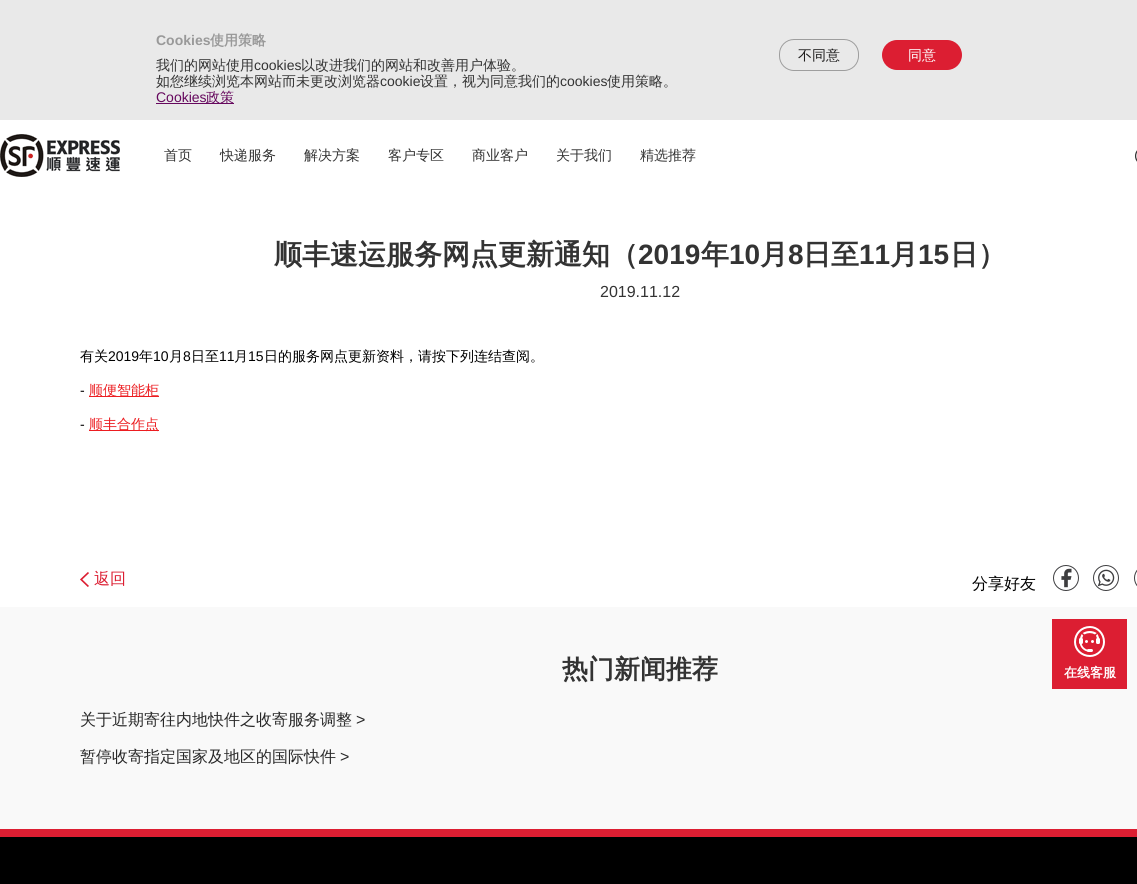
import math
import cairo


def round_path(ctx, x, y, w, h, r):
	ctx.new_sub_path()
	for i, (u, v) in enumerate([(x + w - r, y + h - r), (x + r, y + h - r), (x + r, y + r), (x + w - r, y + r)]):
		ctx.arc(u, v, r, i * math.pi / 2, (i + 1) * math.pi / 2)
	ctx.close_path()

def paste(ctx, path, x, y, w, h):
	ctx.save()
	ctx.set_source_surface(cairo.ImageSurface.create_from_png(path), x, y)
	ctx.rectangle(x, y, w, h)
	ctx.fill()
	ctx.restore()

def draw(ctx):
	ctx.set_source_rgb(1, 1, 1)
	ctx.paint()
	ctx.set_source_rgb(0.914, 0.914, 0.914)
	ctx.rectangle(0, 0, 1137, 120)
	ctx.fill()
	ctx.select_font_face('Liberation Sans', cairo.FONT_SLANT_NORMAL, cairo.FONT_WEIGHT_BOLD)
	ctx.set_font_size(14)
	ctx.set_source_rgb(0.6, 0.6, 0.6)
	ctx.move_to(156, 45)
	ctx.show_text('Cookies')
	ctx.select_font_face('WenQuanYi Zen Hei', cairo.FONT_SLANT_NORMAL, cairo.FONT_WEIGHT_BOLD)
	ctx.move_to(210, 45)
	ctx.show_text('使用策略')
	ctx.select_font_face('WenQuanYi Zen Hei Medium')
	ctx.set_source_rgb(0.2, 0.2, 0.2)
	ctx.move_to(156, 70)
	ctx.show_text('我们的网站使用')
	ctx.select_font_face('Liberation Sans')
	ctx.move_to(254, 70)
	ctx.show_text('cookies')
	ctx.select_font_face('WenQuanYi Zen Hei Medium')
	ctx.move_to(301, 70)
	ctx.show_text('以改进我们的网站和改善用户体验。')
	ctx.move_to(156, 86)
	ctx.show_text('如您继续浏览本网站而未更改浏览器')
	ctx.select_font_face('Liberation Sans')
	ctx.move_to(380, 86)
	ctx.show_text('cookie')
	ctx.select_font_face('WenQuanYi Zen Hei Medium')
	ctx.move_to(420, 86)
	ctx.show_text('设置，视为同意我们的')
	ctx.select_font_face('Liberation Sans')
	ctx.move_to(560, 86)
	ctx.show_text('cookies')
	ctx.select_font_face('WenQuanYi Zen Hei Medium')
	ctx.move_to(607, 86)
	ctx.show_text('使用策略。')
	ctx.select_font_face('Liberation Sans')
	ctx.set_source_rgb(0.4, 0.035, 0.369)
	ctx.move_to(156, 102)
	ctx.show_text('Cookies')
	ctx.rectangle(156, 103, 78, 1)
	ctx.fill()
	ctx.select_font_face('WenQuanYi Zen Hei Medium')
	ctx.move_to(206, 102)
	ctx.show_text('政策')
	round_path(ctx, 779.5, 39.5, 79, 31, 14.5)
	ctx.set_source_rgb(0.62, 0.62, 0.62)
	ctx.set_line_width(1)
	ctx.stroke()
	ctx.set_source_rgb(0.118, 0.114, 0.114)
	ctx.move_to(798, 60)
	ctx.show_text('不同意')
	ctx.set_source_rgb(0.863, 0.118, 0.196)
	round_path(ctx, 882, 40, 80, 30, 15)
	ctx.fill()
	ctx.set_source_rgb(1, 1, 1)
	ctx.move_to(908, 60)
	ctx.show_text('同意')
	paste(ctx, 'media/1.png', 0, 134, 120, 43)
	ctx.set_source_rgb(0.2, 0.2, 0.2)
	for x, y, s in [
		(164, 160, '首页'),
		(220, 160, '快递服务'),
		(304, 160, '解决方案'),
		(388, 160, '客户专区'),
		(472, 160, '商业客户'),
		(556, 160, '关于我们'),
		(640, 160, '精选推荐'),
	]:
		ctx.move_to(x, y)
		ctx.show_text(s)
	paste(ctx, 'media/2.png', 1135, 150, 2, 12)
	ctx.select_font_face('WenQuanYi Zen Hei', cairo.FONT_SLANT_NORMAL, cairo.FONT_WEIGHT_BOLD)
	ctx.set_font_size(28)
	ctx.move_to(274, 264)
	ctx.show_text('顺丰速运服务网点更新通知（')
	ctx.select_font_face('Liberation Sans', cairo.FONT_SLANT_NORMAL, cairo.FONT_WEIGHT_BOLD)
	ctx.move_to(638, 264)
	ctx.show_text('2019')
	ctx.select_font_face('WenQuanYi Zen Hei', cairo.FONT_SLANT_NORMAL, cairo.FONT_WEIGHT_BOLD)
	ctx.move_to(701, 264)
	ctx.show_text('年')
	ctx.select_font_face('Liberation Sans', cairo.FONT_SLANT_NORMAL, cairo.FONT_WEIGHT_BOLD)
	ctx.move_to(729, 264)
	ctx.show_text('10')
	ctx.select_font_face('WenQuanYi Zen Hei', cairo.FONT_SLANT_NORMAL, cairo.FONT_WEIGHT_BOLD)
	ctx.move_to(760, 264)
	ctx.show_text('月')
	ctx.select_font_face('Liberation Sans', cairo.FONT_SLANT_NORMAL, cairo.FONT_WEIGHT_BOLD)
	ctx.move_to(788, 264)
	ctx.show_text('8')
	ctx.select_font_face('WenQuanYi Zen Hei', cairo.FONT_SLANT_NORMAL, cairo.FONT_WEIGHT_BOLD)
	ctx.move_to(803, 264)
	ctx.show_text('日至')
	ctx.select_font_face('Liberation Sans', cairo.FONT_SLANT_NORMAL, cairo.FONT_WEIGHT_BOLD)
	ctx.move_to(859, 264)
	ctx.show_text('11')
	ctx.select_font_face('WenQuanYi Zen Hei', cairo.FONT_SLANT_NORMAL, cairo.FONT_WEIGHT_BOLD)
	ctx.move_to(890, 264)
	ctx.show_text('月')
	ctx.select_font_face('Liberation Sans', cairo.FONT_SLANT_NORMAL, cairo.FONT_WEIGHT_BOLD)
	ctx.move_to(918, 264)
	ctx.show_text('15')
	ctx.select_font_face('WenQuanYi Zen Hei', cairo.FONT_SLANT_NORMAL, cairo.FONT_WEIGHT_BOLD)
	ctx.move_to(950, 264)
	ctx.show_text('日）')
	ctx.select_font_face('Liberation Sans')
	ctx.set_font_size(16)
	ctx.move_to(600, 297)
	ctx.show_text('2019.11.12')
	ctx.select_font_face('WenQuanYi Zen Hei Medium')
	ctx.set_font_size(14)
	ctx.set_source_rgb(0, 0, 0)
	ctx.move_to(80, 361)
	ctx.show_text('有关')
	ctx.select_font_face('Liberation Sans')
	ctx.move_to(108, 361)
	ctx.show_text('2019')
	ctx.select_font_face('WenQuanYi Zen Hei Medium')
	ctx.move_to(139, 361)
	ctx.show_text('年')
	ctx.select_font_face('Liberation Sans')
	ctx.move_to(153, 361)
	ctx.show_text('10')
	ctx.select_font_face('WenQuanYi Zen Hei Medium')
	ctx.move_to(169, 361)
	ctx.show_text('月')
	ctx.select_font_face('Liberation Sans')
	ctx.move_to(183, 361)
	ctx.show_text('8')
	ctx.select_font_face('WenQuanYi Zen Hei Medium')
	ctx.move_to(191, 361)
	ctx.show_text('日至')
	ctx.select_font_face('Liberation Sans')
	ctx.move_to(219, 361)
	ctx.show_text('11')
	ctx.select_font_face('WenQuanYi Zen Hei Medium')
	ctx.move_to(234, 361)
	ctx.show_text('月')
	ctx.select_font_face('Liberation Sans')
	ctx.move_to(248, 361)
	ctx.show_text('15')
	ctx.select_font_face('WenQuanYi Zen Hei Medium')
	ctx.move_to(264, 361)
	ctx.show_text('日的服务网点更新资料，请按下列连结查阅。')
	ctx.select_font_face('Liberation Sans')
	ctx.move_to(80, 395)
	ctx.show_text('-')
	ctx.set_source_rgb(0.922, 0.114, 0.129)
	ctx.rectangle(89, 396, 70, 1)
	ctx.fill()
	ctx.select_font_face('WenQuanYi Zen Hei Medium')
	ctx.move_to(89, 395)
	ctx.show_text('顺便智能柜')
	ctx.select_font_face('Liberation Sans')
	ctx.set_source_rgb(0, 0, 0)
	ctx.move_to(80, 429)
	ctx.show_text('-')
	ctx.set_source_rgb(0.922, 0.114, 0.129)
	ctx.rectangle(89, 430, 70, 1)
	ctx.fill()
	ctx.select_font_face('WenQuanYi Zen Hei Medium')
	ctx.move_to(89, 429)
	ctx.show_text('顺丰合作点')
	paste(ctx, 'media/3.png', 80, 572, 9, 15)
	ctx.set_font_size(16)
	ctx.set_source_rgb(0.863, 0.118, 0.196)
	ctx.move_to(94, 584)
	ctx.show_text('返回')
	ctx.set_source_rgb(0, 0, 0)
	ctx.move_to(972, 589)
	ctx.show_text('分享好友')
	ctx.new_path()
	ctx.arc(1066, 578, 12.5, 0, 2 * math.pi)
	ctx.set_source_rgb(0.243, 0.243, 0.251)
	ctx.stroke()
	paste(ctx, 'media/4.png', 1061, 568, 11, 20)
	ctx.arc(1106, 578, 12.5, 0, 2 * math.pi)
	ctx.stroke()
	paste(ctx, 'media/5.png', 1097, 569, 18, 18)
	round_path(ctx, 1134.5, 565.5, 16, 25, 12.5)
	ctx.stroke()
	ctx.set_source_rgb(0.976, 0.976, 0.976)
	ctx.rectangle(0, 607, 1137, 222)
	ctx.fill()
	ctx.select_font_face('WenQuanYi Zen Hei', cairo.FONT_SLANT_NORMAL, cairo.FONT_WEIGHT_BOLD)
	ctx.set_font_size(26)
	ctx.set_source_rgb(0.2, 0.2, 0.2)
	ctx.move_to(562, 678)
	ctx.show_text('热门新闻推荐')
	ctx.select_font_face('WenQuanYi Zen Hei Medium')
	ctx.set_font_size(16)
	ctx.set_source_rgb(0.157, 0.157, 0.157)
	ctx.move_to(80, 725)
	ctx.show_text('关于近期寄往内地快件之收寄服务调整')
	ctx.select_font_face('Liberation Sans')
	ctx.move_to(356, 725)
	ctx.show_text('>')
	ctx.select_font_face('WenQuanYi Zen Hei Medium')
	ctx.move_to(80, 762)
	ctx.show_text('暂停收寄指定国家及地区的国际快件')
	ctx.select_font_face('Liberation Sans')
	ctx.move_to(340, 762)
	ctx.show_text('>')
	ctx.set_source_rgb(0.863, 0.118, 0.196)
	ctx.rectangle(1052, 619, 75, 70)
	ctx.fill()
	paste(ctx, 'media/6.png', 1074, 626, 31, 31)
	ctx.select_font_face('WenQuanYi Zen Hei', cairo.FONT_SLANT_NORMAL, cairo.FONT_WEIGHT_BOLD)
	ctx.set_font_size(13)
	ctx.set_source_rgb(1, 1, 1)
	ctx.move_to(1064, 677)
	ctx.show_text('在线客服')
	ctx.set_source_rgb(0, 0, 0)
	ctx.rectangle(0, 837, 1137, 47)
	ctx.fill()
	ctx.set_source_rgb(0.863, 0.118, 0.196)
	ctx.rectangle(0, 829, 1137, 8)
	ctx.fill()


surface = cairo.ImageSurface(cairo.FORMAT_RGB24, 1137, 884)
ctx = cairo.Context(surface)
options = cairo.FontOptions()
options.set_hint_metrics(cairo.HINT_METRICS_OFF)
options.set_hint_style(cairo.HINT_STYLE_NONE)
ctx.set_font_options(options)
ctx.set_miter_limit(4)
draw(ctx)
surface.write_to_png('image.png')
